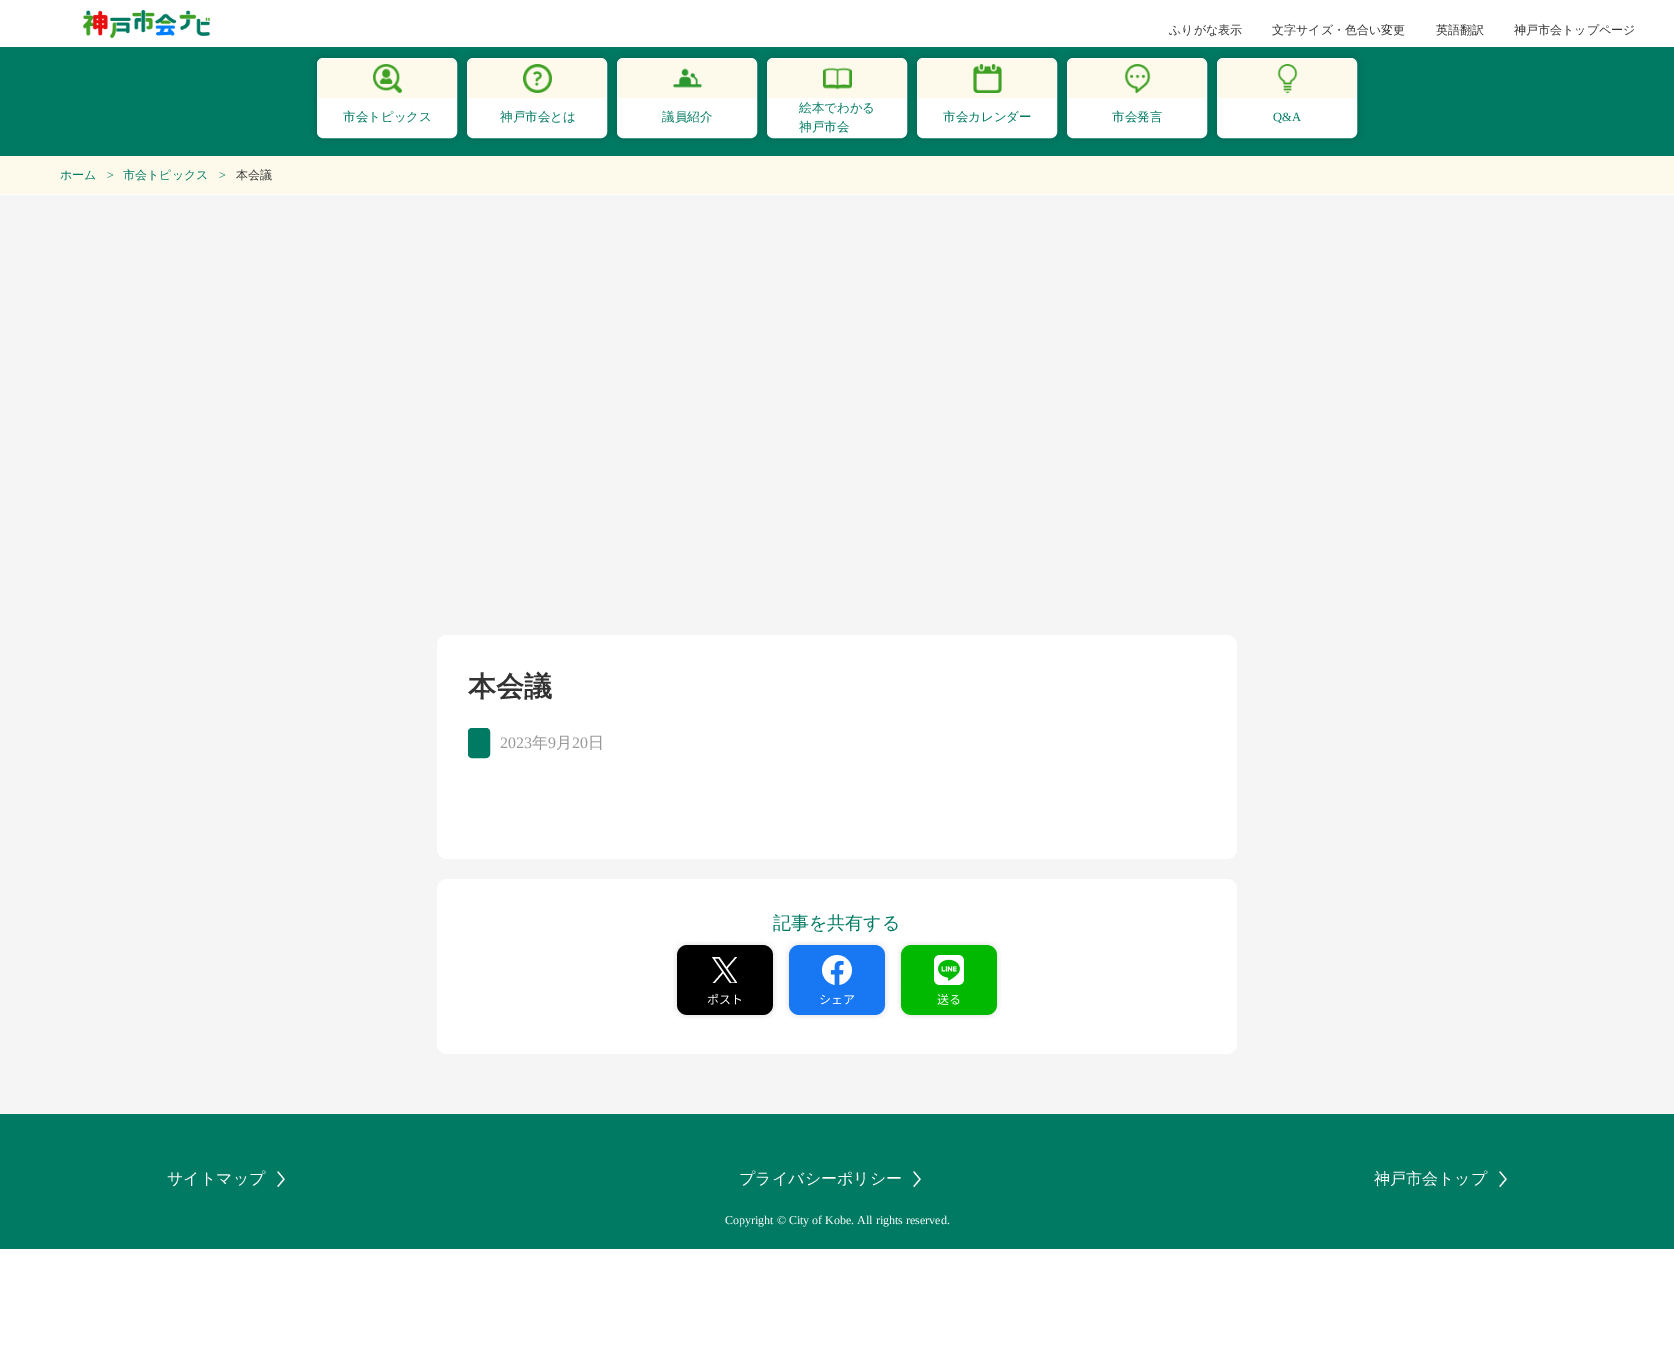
%!PS
<< /PageSize [1674 1367] /PageUsesTransparency true >> setpagedevice
/rgb { 3 { 255 div 3 1 roll } repeat setrgbcolor } def
/font { [ exch dup neg 0 0 3 -1 roll 0 0 ] selectfont } def
/alpha { dup .setfillconstantalpha .setstrokeconstantalpha } def
/roundrect { 5 dict begin { /r /h /w /y /x } { exch def } forall
  x r add y moveto x w add y 2 copy h add r arct x w add y h add x 1 index r arct
  x y h add x y r arct x y 2 copy exch w add exch r arct closepath end } def
/shadow { 12 dict begin { /a /b /q /h /w /y /x } { exch def } forall gsave /was 0 def
  9 -2 -9 { dup b mul 4 div /e exch def 1 sub .425 mul 2.718 exch exp 1 add a .99 .min exch div /now exch def
    1 1 now sub 1 was sub div sub alpha /was now def
    w h .min e 2 mul add 0 gt { x e sub y e sub w e 2 mul add h e 2 mul add
      q e add b .6 mul add w h .min 2 div e add .min 0 .max roundrect fill } if } for grestore end } def
/picture { 5 dict begin { /h /w /y /x /name } { exch def } forall
  gsave x y translate w h scale
  w h 8 [w 0 0 h 0 0] name (r) file false 3 colorimage grestore end } def
0 .pushpdf14devicefilter
0 1367 translate 1 -1 scale
4 setmiterlimit
255 255 255 rgb
0 0 1674 1367 rectfill
0 122 99 rgb
0 50 1674 106 rectfill
0 0 0 rgb
315 56 144 84 8 4 0.15 shadow
255 255 255 rgb
317.5 58.5 139 79 5.5 roundrect stroke
253 250 235 rgb
323 59 moveto 451 59 lineto 454 59 456 61 456 64 curveto 456 98 lineto 318 98 lineto 318 64 lineto 318 61 320 59 323 59 curveto closepath fill
255 255 255 rgb
318 98 moveto 456 98 lineto 456 132 lineto 456 135 454 137 451 137 curveto 323 137 lineto 320 137 318 135 318 132 curveto closepath fill
0 0 0 rgb
465 56 144 84 8 4 0.15 shadow
255 255 255 rgb
467.5 58.5 139 79 5.5 roundrect stroke
253 250 235 rgb
473 59 moveto 601 59 lineto 604 59 606 61 606 64 curveto 606 98 lineto 468 98 lineto 468 64 lineto 468 61 470 59 473 59 curveto closepath fill
255 255 255 rgb
468 98 moveto 606 98 lineto 606 132 lineto 606 135 604 137 601 137 curveto 473 137 lineto 470 137 468 135 468 132 curveto closepath fill
0 0 0 rgb
615 56 144 84 8 4 0.15 shadow
255 255 255 rgb
617.5 58.5 139 79 5.5 roundrect stroke
253 250 235 rgb
623 59 moveto 751 59 lineto 754 59 756 61 756 64 curveto 756 98 lineto 618 98 lineto 618 64 lineto 618 61 620 59 623 59 curveto closepath fill
255 255 255 rgb
618 98 moveto 756 98 lineto 756 132 lineto 756 135 754 137 751 137 curveto 623 137 lineto 620 137 618 135 618 132 curveto closepath fill
0 0 0 rgb
765 56 144 84 8 4 0.15 shadow
255 255 255 rgb
767.5 58.5 139 79 5.5 roundrect stroke
253 250 235 rgb
773 59 moveto 901 59 lineto 904 59 906 61 906 64 curveto 906 98 lineto 768 98 lineto 768 64 lineto 768 61 770 59 773 59 curveto closepath fill
255 255 255 rgb
768 98 moveto 906 98 lineto 906 132 lineto 906 135 904 137 901 137 curveto 773 137 lineto 770 137 768 135 768 132 curveto closepath fill
0 0 0 rgb
915 56 144 84 8 4 0.15 shadow
255 255 255 rgb
917.5 58.5 139 79 5.5 roundrect stroke
253 250 235 rgb
923 59 moveto 1051 59 lineto 1054 59 1056 61 1056 64 curveto 1056 98 lineto 918 98 lineto 918 64 lineto 918 61 920 59 923 59 curveto closepath fill
255 255 255 rgb
918 98 moveto 1056 98 lineto 1056 132 lineto 1056 135 1054 137 1051 137 curveto 923 137 lineto 920 137 918 135 918 132 curveto closepath fill
0 0 0 rgb
1065 56 144 84 8 4 0.15 shadow
255 255 255 rgb
1067.5 58.5 139 79 5.5 roundrect stroke
253 250 235 rgb
1073 59 moveto 1201 59 lineto 1204 59 1206 61 1206 64 curveto 1206 98 lineto 1068 98 lineto 1068 64 lineto 1068 61 1070 59 1073 59 curveto closepath fill
255 255 255 rgb
1068 98 moveto 1206 98 lineto 1206 132 lineto 1206 135 1204 137 1201 137 curveto 1073 137 lineto 1070 137 1068 135 1068 132 curveto closepath fill
0 0 0 rgb
1215 56 144 84 8 4 0.15 shadow
0 122 99 rgb
0 47 1674 3 rectfill
(img/1.rgb) 82 10 129 28 picture
(img/2.rgb) 373 64 29 29 picture
(img/3.rgb) 523 64 29 29 picture
(img/4.rgb) 673 68 29 20 picture
(img/5.rgb) 823 67 29 23 picture
(img/6.rgb) 973 64 29 29 picture
(img/7.rgb) 1124 64 27 29 picture
255 255 255 rgb
1217.5 58.5 139 79 5.5 roundrect stroke
253 250 235 rgb
1223 59 moveto 1351 59 lineto 1354 59 1356 61 1356 64 curveto 1356 98 lineto 1218 98 lineto 1218 64 lineto 1218 61 1220 59 1223 59 curveto closepath fill
(img/8.rgb) 1277 64 21 29 picture
255 255 255 rgb
1218 98 moveto 1356 98 lineto 1356 132 lineto 1356 135 1354 137 1351 137 curveto 1223 137 lineto 1220 137 1218 135 1218 132 curveto closepath fill
253 250 235 rgb
0 156 1674 38 rectfill
245 245 245 rgb
0 195 1674 919 rectfill
255 255 255 rgb
437 635 800 224 10 roundrect fill
0 122 99 rgb
468.5 728.5 21 29 3.5 roundrect gsave fill grestore
stroke
255 255 255 rgb
437 879 800 175 10 roundrect fill
(img/9.rgb) 673 941 104 78 picture
(img/10.rgb) 785 941 104 78 picture
(img/11.rgb) 897 941 104 78 picture
0 122 99 rgb
0 1114 1674 135 rectfill
(img/12.rgb) 277 1171 8 16 picture
(img/12.rgb) 913 1171 8 16 picture
(img/12.rgb) 1499 1171 8 16 picture
/WenQuanYiZenHei-Medium 12 font
51 51 51 rgb
[
  [(ふりがな表示) 1169 34]
  [(文字サイズ・色合い変更) 1272 34]
  [(英語翻訳) 1436 34]
  [(神戸市会トップページ) 1514 34]
] { aload pop moveto show } forall
/WenQuanYiZenHei-Medium 12.5 font
0 122 99 rgb
[
  [(市会トピックス) 343 121]
  [(神戸市会とは) 500 121]
  [(議員紹介) 662 121]
  [(絵本でわかる) 799 112]
  [(神戸市会) 799 131]
  [(市会カレンダー) 943 121]
  [(市会発言) 1112 121]
] { aload pop moveto show } forall
/LiberationSerif-Regular 12.5 font
1273 121 moveto (Q&A) show
/WenQuanYiZenHei-Medium 12 font
60 179 moveto (ホーム) show
/LiberationSerif-Regular 12 font
107 179 moveto (>) show
/WenQuanYiZenHei-Medium 12 font
123 179 moveto (市会トピックス) show
/LiberationSerif-Regular 12 font
219 179 moveto (>) show
/WenQuanYiZenHei-Medium 12 font
51 51 51 rgb
236 179 moveto (本会議) show
/WenQuanYiZenHei-Bold 28 font
468 696 moveto (本会議) show
/LiberationSerif-Regular 16 font
153 153 153 rgb
500 748 moveto (2023) show
/WenQuanYiZenHei-Medium 16 font
532 748 moveto (年) show
/LiberationSerif-Regular 16 font
548 748 moveto (9) show
/WenQuanYiZenHei-Medium 16 font
556 748 moveto (月) show
/LiberationSerif-Regular 16 font
572 748 moveto (20) show
/WenQuanYiZenHei-Medium 16 font
588 748 moveto (日) show
/WenQuanYiZenHei-Medium 18 font
0 122 99 rgb
773 929 moveto (記事を共有する) show
/WenQuanYiZenHei-Medium 16 font
255 255 255 rgb
[
  [(サイトマップ) 167 1184]
  [(プライバシーポリシー) 739 1184]
  [(神戸市会トップ) 1374 1184]
] { aload pop moveto show } forall
/LiberationSerif-Regular 12 font
725 1224 moveto (Copyright © City of Kobe. All rights reserved.) show
.poppdf14devicefilter showpage
